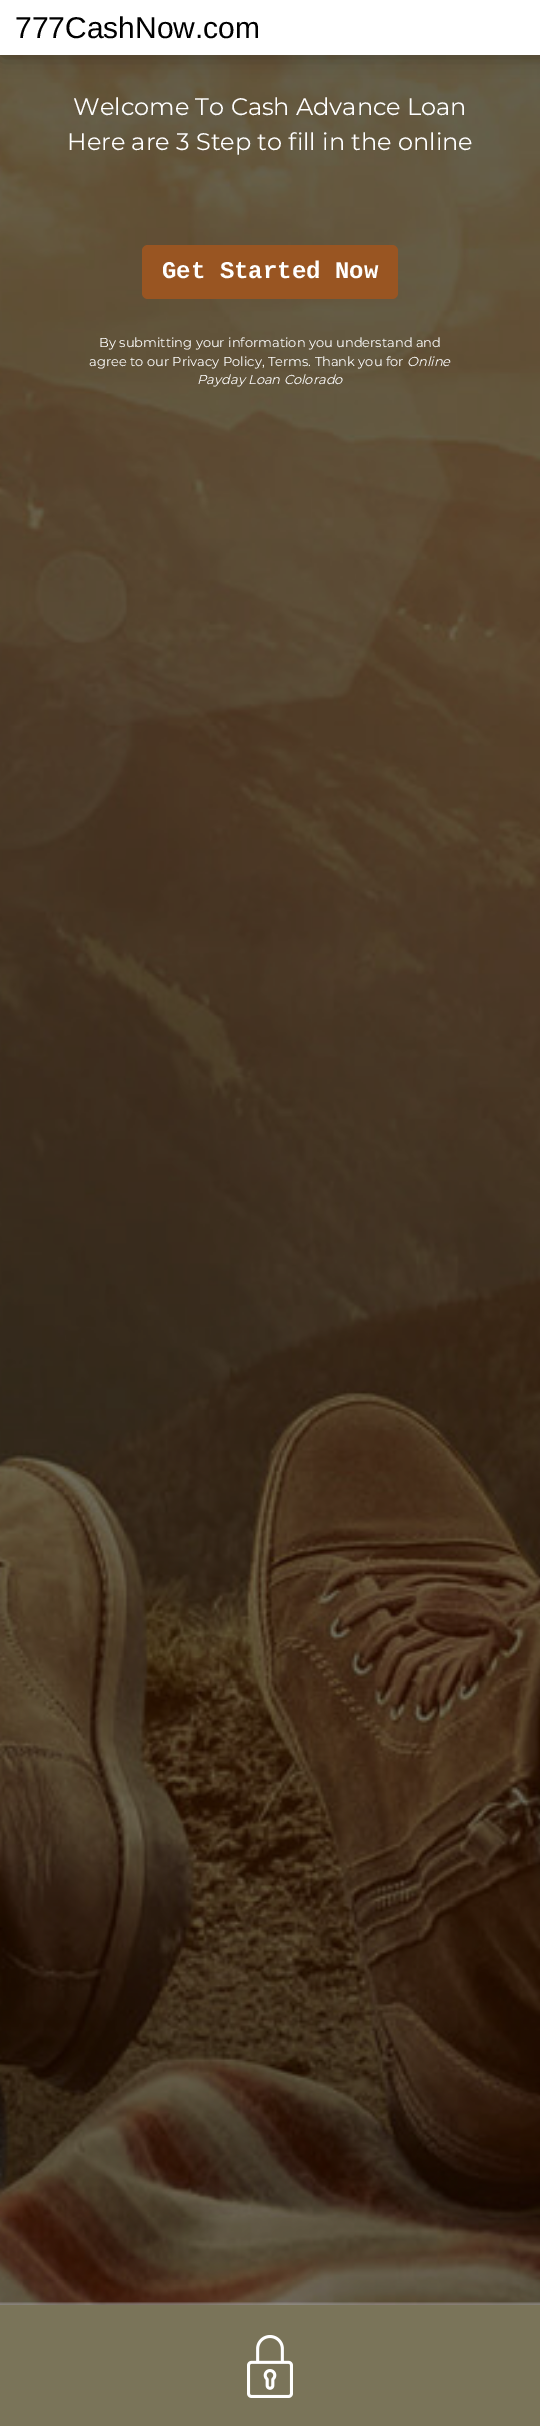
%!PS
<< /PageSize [540 2426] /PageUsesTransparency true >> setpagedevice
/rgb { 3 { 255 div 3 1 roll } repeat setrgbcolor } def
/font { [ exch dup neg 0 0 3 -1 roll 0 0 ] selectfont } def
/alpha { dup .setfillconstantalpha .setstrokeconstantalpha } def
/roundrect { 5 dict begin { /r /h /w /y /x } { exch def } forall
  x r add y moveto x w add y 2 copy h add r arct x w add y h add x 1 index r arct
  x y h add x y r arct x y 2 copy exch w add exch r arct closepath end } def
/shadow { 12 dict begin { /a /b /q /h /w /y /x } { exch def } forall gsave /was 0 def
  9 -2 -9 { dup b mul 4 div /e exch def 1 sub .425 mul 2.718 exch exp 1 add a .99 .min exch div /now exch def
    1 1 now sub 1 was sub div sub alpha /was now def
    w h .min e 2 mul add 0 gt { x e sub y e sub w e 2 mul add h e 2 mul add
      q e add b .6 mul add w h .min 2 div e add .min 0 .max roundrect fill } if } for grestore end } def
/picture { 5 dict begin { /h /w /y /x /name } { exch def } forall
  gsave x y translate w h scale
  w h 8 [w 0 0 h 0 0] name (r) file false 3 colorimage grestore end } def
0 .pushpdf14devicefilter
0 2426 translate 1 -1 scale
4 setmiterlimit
122 116 89 rgb
0 0 540 2426 rectfill
(img/1.rgb) 0 55 540 2250 picture
0 0 0 rgb
2 2 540 55 0 10 0.3 shadow
255 255 255 rgb
0 0 540 55 rectfill
153 85 34 rgb
142 245 256 54 6 roundrect fill
(img/2.rgb) 247 2335 46 63 picture
/LiberationSans-Regular 30 font
0 0 0 rgb
15 38 moveto (777CashNow.com) show
/Montserrat-Regular 24 font
255 255 255 rgb
73 115 moveto (Welcome To Cash Advance Loan) show
67 150 moveto (Here are 3 Step to fill in the online) show
/LiberationMono-Bold 24 font
162 278 moveto (Get Started Now) show
/Montserrat-Regular 13 font
99 347 moveto (By submitting your information you understand and) show
89 366 moveto (agree to our Privacy Policy, Terms. Thank you for) show
/Montserrat-Italic 13 font
407 366 moveto (Online) show
197 384 moveto (Payday Loan Colorado) show
.poppdf14devicefilter showpage
